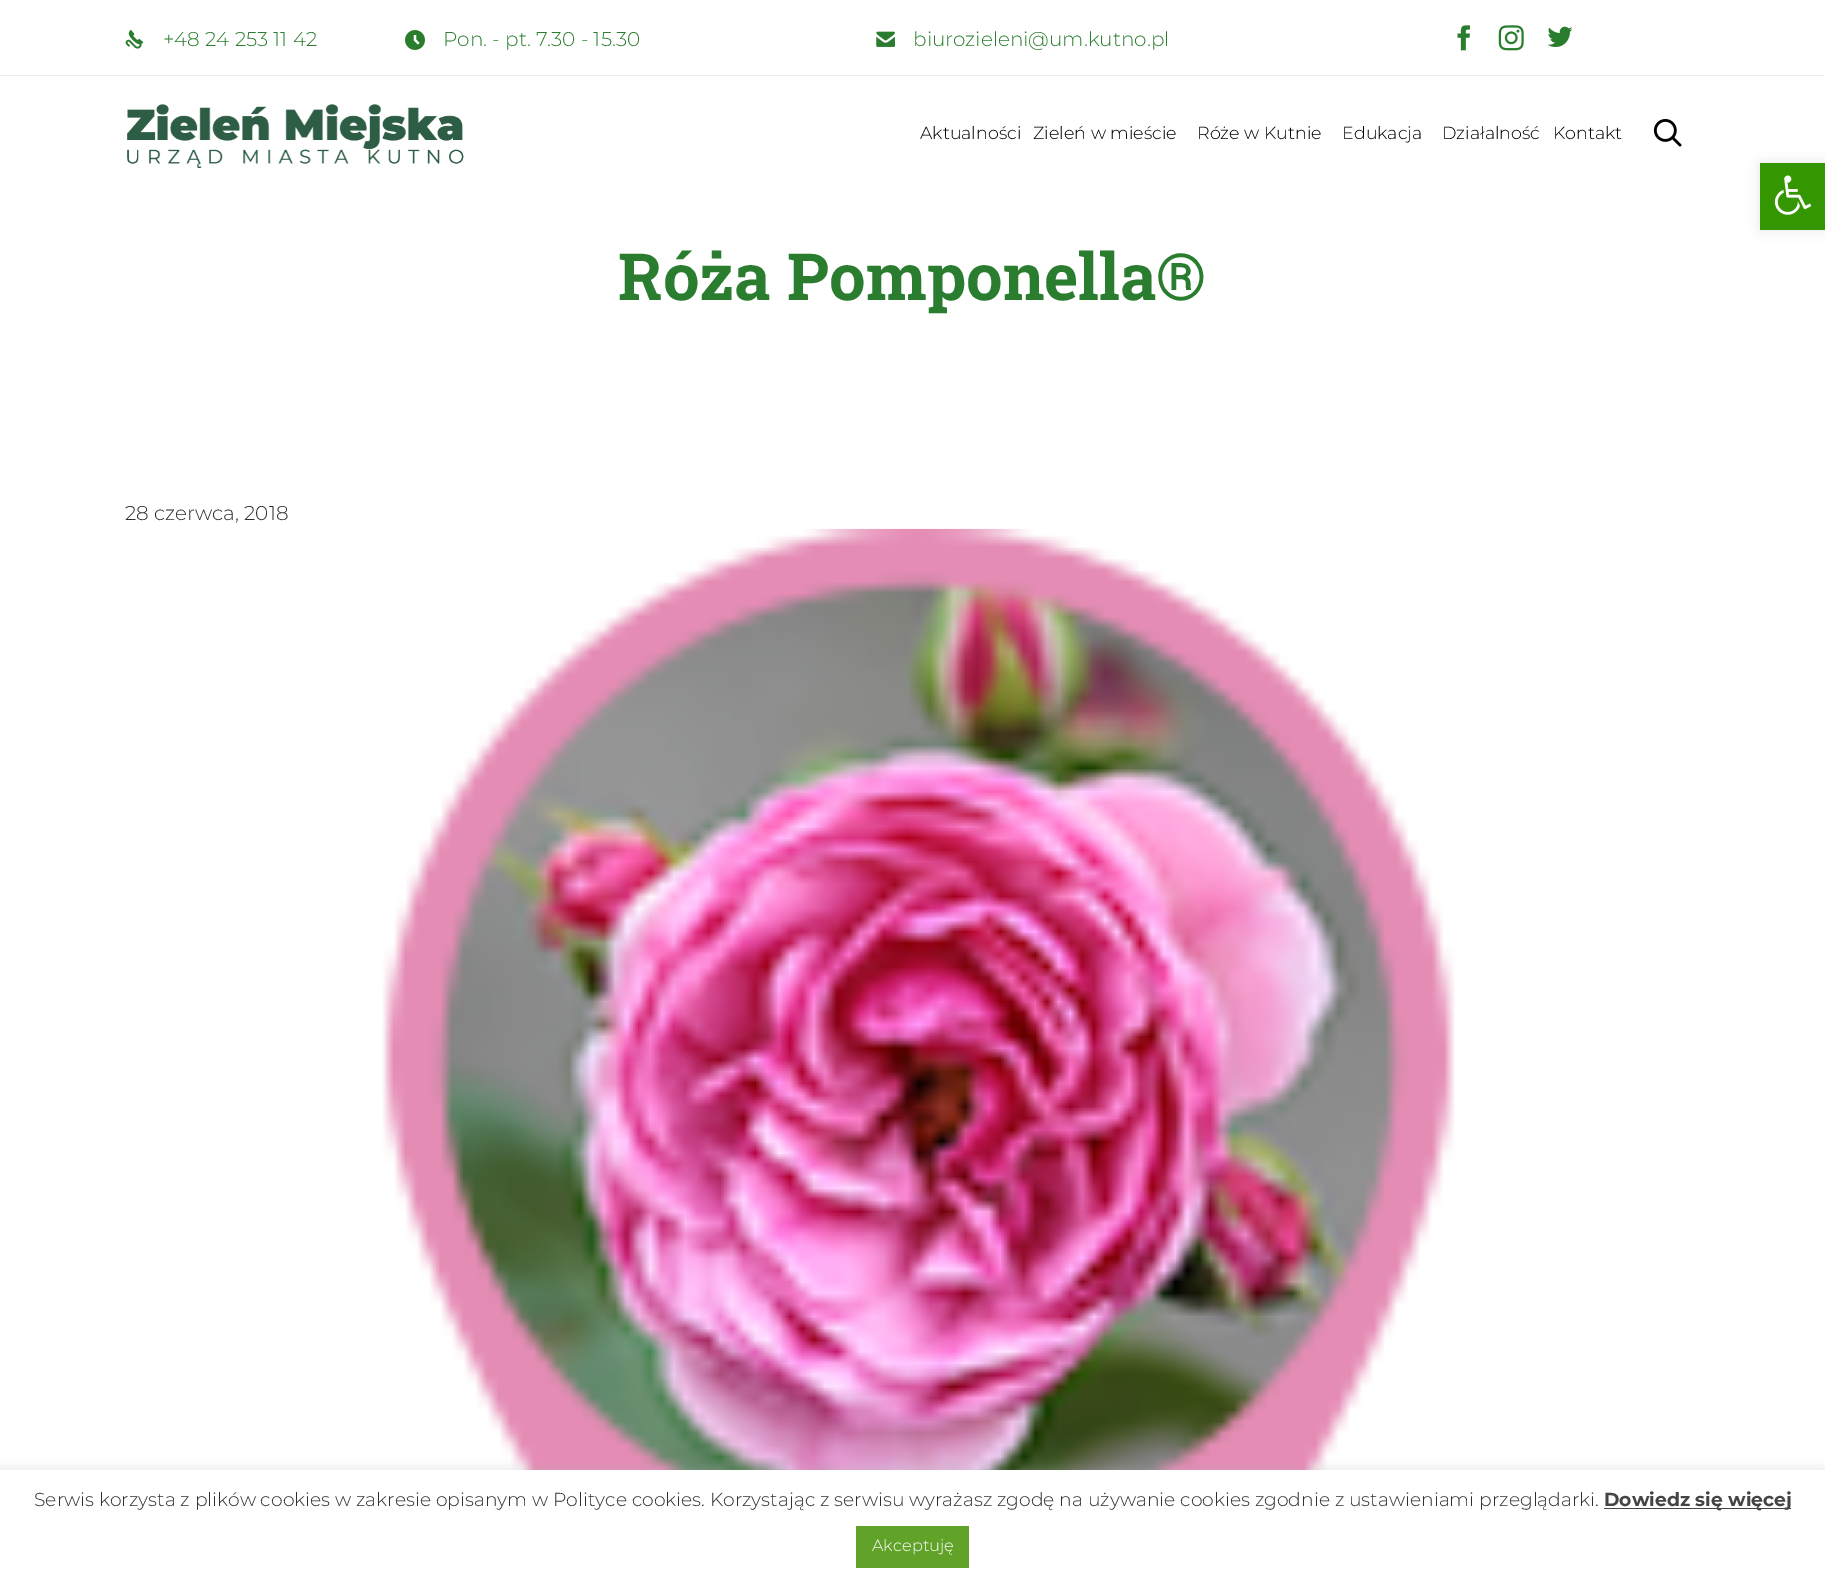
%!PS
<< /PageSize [1825 1595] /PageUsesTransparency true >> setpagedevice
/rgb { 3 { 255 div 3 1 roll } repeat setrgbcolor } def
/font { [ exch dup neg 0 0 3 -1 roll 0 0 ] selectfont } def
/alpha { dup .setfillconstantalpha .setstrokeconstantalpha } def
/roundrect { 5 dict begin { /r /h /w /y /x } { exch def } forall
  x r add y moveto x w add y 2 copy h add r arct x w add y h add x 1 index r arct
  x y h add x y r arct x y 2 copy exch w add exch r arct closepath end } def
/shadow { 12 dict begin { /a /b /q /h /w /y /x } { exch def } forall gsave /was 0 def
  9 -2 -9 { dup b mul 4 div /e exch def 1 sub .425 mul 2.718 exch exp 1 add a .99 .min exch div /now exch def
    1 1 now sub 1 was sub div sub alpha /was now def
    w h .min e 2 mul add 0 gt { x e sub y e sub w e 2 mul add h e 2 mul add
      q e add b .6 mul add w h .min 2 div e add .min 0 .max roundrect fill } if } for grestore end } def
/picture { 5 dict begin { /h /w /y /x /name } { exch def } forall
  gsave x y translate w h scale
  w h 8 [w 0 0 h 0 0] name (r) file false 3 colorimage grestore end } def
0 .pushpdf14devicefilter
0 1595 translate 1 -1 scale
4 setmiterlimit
255 255 255 rgb
0 0 1825 1595 rectfill
237 237 237 rgb
0 75 1825 1 rectfill
(img/1.rgb) 125 30 19 19 picture
(img/2.rgb) 405 30 20 20 picture
(img/3.rgb) 876 31 19 16 picture
(img/4.rgb) 1457 25 13 26 picture
(img/5.rgb) 1498 25 26 26 picture
(img/6.rgb) 1547 26 26 21 picture
(img/7.rgb) 127 104 337 64 picture
(img/8.rgb) 1653 119 29 28 picture
0 0 0 rgb
1760 163 65 67 0 6 0.1 shadow
52 150 0 rgb
1760 163 65 67 rectfill
(img/9.rgb) 1774 175 38 40 picture
(img/10.rgb) 382 528 1073 942 picture
172 171 171 rgb
0 1469 1825 125 0 6 0.3 shadow
[
  [0 1470 1825 125 255 255 255]
  [1604 1508 187 1 68 68 68]
  [856 1526 113 42 97 162 41]
] { aload pop rgb rectfill } forall
/Montserrat-Light 20 font
42 125 46 rgb
[
  [(+48 24 253 11 42) 163 46]
  [(Pon. - pt. 7.30 - 15.30) 443 46]
  [(biurozieleni@um.kutno.pl) 913 46]
] { aload pop moveto show } forall
/Montserrat-Light 17.5 font
0 0 0 rgb
[
  [(Aktualności) 920 139]
  [(Zieleń w mieście) 1033 139]
  [(Róże w Kutnie) 1197 139]
  [(Edukacja) 1342 139]
  [(Działalność) 1442 139]
  [(Kontakt) 1553 139]
] { aload pop moveto show } forall
/RobotoSlab-Bold 65 font
42 125 46 rgb
618 300 moveto (Róża Pomponella®) show
/Montserrat-Light 20 font
47 47 47 rgb
125 520 moveto (28 czerwca, 2018) show
/Montserrat-Light 18.75 font
34 1506 moveto (Serwis korzysta z plików cookies w zakresie opisanym w Polityce cookies. Korzystając z serwisu wyrażasz zgodę na używanie cookies zgodnie z ustawieniami przeglądarki.) show
/Montserrat-Bold 18.75 font
68 68 68 rgb
1604 1506 moveto (Dowiedz się więcej) show
/Montserrat-Light 16.25 font
255 255 255 rgb
872 1551 moveto (Akceptuję) show
.poppdf14devicefilter showpage
